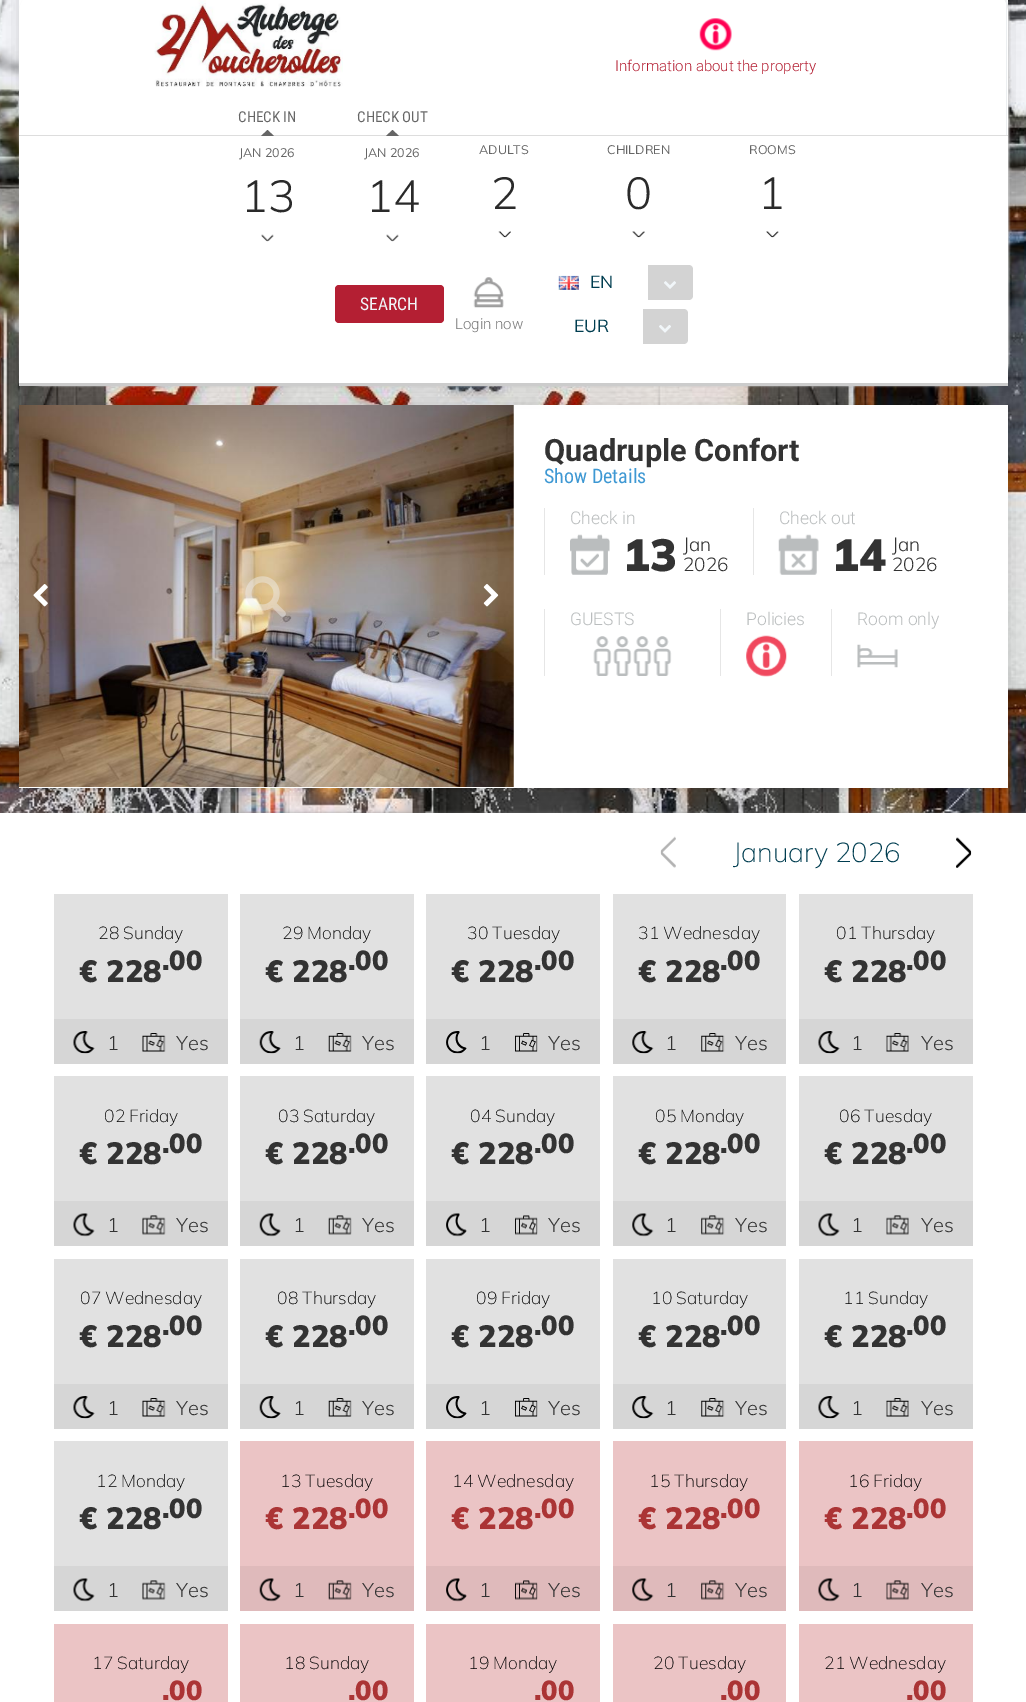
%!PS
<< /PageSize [1026 1702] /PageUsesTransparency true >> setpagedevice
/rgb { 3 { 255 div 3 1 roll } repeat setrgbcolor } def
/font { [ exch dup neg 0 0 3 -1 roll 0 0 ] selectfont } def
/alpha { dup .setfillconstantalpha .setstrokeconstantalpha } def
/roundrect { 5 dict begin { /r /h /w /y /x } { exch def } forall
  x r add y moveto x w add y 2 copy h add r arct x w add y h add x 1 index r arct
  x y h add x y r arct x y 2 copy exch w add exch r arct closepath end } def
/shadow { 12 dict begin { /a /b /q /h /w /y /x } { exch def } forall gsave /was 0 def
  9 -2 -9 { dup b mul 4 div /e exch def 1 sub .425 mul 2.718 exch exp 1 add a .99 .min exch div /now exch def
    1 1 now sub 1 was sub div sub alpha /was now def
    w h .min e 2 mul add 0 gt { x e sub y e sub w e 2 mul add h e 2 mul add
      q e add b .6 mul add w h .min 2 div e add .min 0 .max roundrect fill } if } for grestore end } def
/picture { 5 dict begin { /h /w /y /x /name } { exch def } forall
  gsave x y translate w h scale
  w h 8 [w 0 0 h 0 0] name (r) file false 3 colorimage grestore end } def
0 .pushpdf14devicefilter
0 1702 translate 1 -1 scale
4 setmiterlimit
255 255 255 rgb
0 0 1026 1702 rectfill
(img/1.rgb) 0 0 1026 813 picture
119 119 119 rgb
1 814 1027 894 0 2 1 shadow
255 255 255 rgb
0 813 1026 889 rectfill
0 0 0 rgb
19 405 989 383 0 10.5 0.15 shadow
255 255 255 rgb
19 405 989 383 rectfill
(img/12.rgb) 19 405 495 382 picture
0 0 0 rgb
19 -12 989 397 0 10.5 0.15 shadow
255 255 255 rgb
19 0 989 13 rectfill
204 204 204 rgb
20 -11 989 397 25 1 1 shadow
255 255 255 rgb
44 -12 moveto 983 -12 lineto 997 -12 1008 -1 1008 13 curveto 1008 385 lineto 19 385 lineto 19 13 lineto 19 -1 30 -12 44 -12 curveto closepath fill
204 204 204 rgb
19 383 989 3 rectfill
236 239 241 rgb
1006 0 1 135 rectfill
(img/2.rgb) 154 0 189 87 picture
(img/3.rgb) 699 18 33 33 picture
221 221 221 rgb
19 135 989 1 rectfill
102 102 102 rgb
274 136 moveto 261 136 lineto 267.5 130 lineto closepath fill
(img/4.rgb) 261 234 13 8 picture
399 136 moveto 386 136 lineto 392.5 130 lineto closepath fill
(img/4.rgb) 386 234 13 8 picture
(img/5.rgb) 498 231 13 7 picture
(img/6.rgb) 632 231 13 7 picture
(img/7.rgb) 766 231 13 7 picture
180 31 51 rgb
335 285 109 38 4 roundrect fill
(img/8.rgb) 473 277 31 31 picture
(img/9.rgb) 558 275 21 15 picture
211 211 211 rgb
648 265 moveto 689 265 lineto 691 265 693 267 693 269 curveto 693 296 lineto 693 298 691 300 689 300 curveto 648 300 lineto closepath fill
(img/10.rgb) 664 281 12 8 picture
643 309 moveto 684 309 lineto 686 309 688 311 688 313 curveto 688 340 lineto 688 342 686 344 684 344 curveto 643 344 lineto closepath fill
(img/11.rgb) 659 325 12 8 picture
(img/13.rgb) 33 584 15 23 picture
(img/14.rgb) 245 576 41 41 picture
(img/15.rgb) 483 584 16 23 picture
230 230 230 rgb
544 508 1 67 rectfill
(img/16.rgb) 570 534 40 41 picture
753 508 1 67 rectfill
(img/17.rgb) 778 534 41 41 picture
544 609 1 67 rectfill
(img/18.rgb) 593 636 19 40 picture
(img/19.rgb) 613 636 19 40 picture
(img/18.rgb) 633 636 19 40 picture
(img/18.rgb) 653 636 19 40 picture
720 609 1 67 rectfill
(img/20.rgb) 746 635 41 42 picture
831 609 1 67 rectfill
(img/21.rgb) 857 644 41 24 picture
(img/22.rgb) 660 836 16 32 picture
(img/23.rgb) 956 837 16 31 picture
225 225 225 rgb
54 894 174 125 rectfill
214 214 214 rgb
54 1019 174 45 rectfill
(img/24.rgb) 73 1031 22 23 picture
(img/25.rgb) 142 1033 24 19 picture
225 225 225 rgb
240 894 174 125 rectfill
214 214 214 rgb
240 1019 174 45 rectfill
(img/26.rgb) 259 1031 22 23 picture
(img/27.rgb) 328 1033 24 19 picture
225 225 225 rgb
426 894 174 125 rectfill
214 214 214 rgb
426 1019 174 45 rectfill
(img/28.rgb) 446 1031 21 23 picture
(img/29.rgb) 515 1033 23 19 picture
225 225 225 rgb
613 894 173 125 rectfill
214 214 214 rgb
613 1019 173 45 rectfill
(img/30.rgb) 632 1031 22 23 picture
(img/31.rgb) 701 1033 24 19 picture
225 225 225 rgb
799 894 174 125 rectfill
214 214 214 rgb
799 1019 174 45 rectfill
(img/24.rgb) 818 1031 22 23 picture
(img/32.rgb) 886 1033 23 19 picture
225 225 225 rgb
54 1076 174 125 rectfill
214 214 214 rgb
54 1201 174 45 rectfill
(img/33.rgb) 73 1213 22 24 picture
(img/34.rgb) 142 1215 24 20 picture
225 225 225 rgb
240 1076 174 125 rectfill
214 214 214 rgb
240 1201 174 45 rectfill
(img/35.rgb) 259 1213 22 24 picture
(img/36.rgb) 328 1215 24 20 picture
225 225 225 rgb
426 1076 174 125 rectfill
214 214 214 rgb
426 1201 174 45 rectfill
(img/37.rgb) 446 1213 21 24 picture
(img/38.rgb) 515 1215 23 20 picture
225 225 225 rgb
613 1076 173 125 rectfill
214 214 214 rgb
613 1201 173 45 rectfill
(img/39.rgb) 632 1213 22 24 picture
(img/40.rgb) 701 1215 24 20 picture
225 225 225 rgb
799 1076 174 125 rectfill
214 214 214 rgb
799 1201 174 45 rectfill
(img/33.rgb) 818 1213 22 24 picture
(img/41.rgb) 886 1215 23 20 picture
225 225 225 rgb
54 1259 174 125 rectfill
214 214 214 rgb
54 1384 174 45 rectfill
(img/24.rgb) 73 1396 22 23 picture
(img/25.rgb) 142 1398 24 19 picture
225 225 225 rgb
240 1259 174 125 rectfill
214 214 214 rgb
240 1384 174 45 rectfill
(img/26.rgb) 259 1396 22 23 picture
(img/27.rgb) 328 1398 24 19 picture
225 225 225 rgb
426 1259 174 125 rectfill
214 214 214 rgb
426 1384 174 45 rectfill
(img/28.rgb) 446 1396 21 23 picture
(img/29.rgb) 515 1398 23 19 picture
225 225 225 rgb
613 1259 173 125 rectfill
214 214 214 rgb
613 1384 173 45 rectfill
(img/30.rgb) 632 1396 22 23 picture
(img/31.rgb) 701 1398 24 19 picture
225 225 225 rgb
799 1259 174 125 rectfill
214 214 214 rgb
799 1384 174 45 rectfill
(img/24.rgb) 818 1396 22 23 picture
(img/32.rgb) 886 1398 23 19 picture
225 225 225 rgb
54 1441 174 125 rectfill
214 214 214 rgb
54 1566 174 45 rectfill
(img/33.rgb) 73 1578 22 24 picture
(img/34.rgb) 142 1580 24 20 picture
235 196 197 rgb
240 1441 174 125 rectfill
223 186 187 rgb
240 1566 174 45 rectfill
(img/42.rgb) 259 1578 22 24 picture
(img/43.rgb) 328 1580 24 20 picture
235 196 197 rgb
426 1441 174 125 rectfill
223 186 187 rgb
426 1566 174 45 rectfill
(img/44.rgb) 446 1578 21 24 picture
(img/45.rgb) 515 1580 23 20 picture
235 196 197 rgb
613 1441 173 125 rectfill
223 186 187 rgb
613 1566 173 45 rectfill
(img/46.rgb) 632 1578 22 24 picture
(img/47.rgb) 701 1580 24 20 picture
235 196 197 rgb
799 1441 174 125 rectfill
223 186 187 rgb
799 1566 174 45 rectfill
(img/48.rgb) 818 1578 22 24 picture
(img/49.rgb) 886 1580 23 20 picture
[
  [54 1624 174 78 235 196 197]
  [240 1624 174 78 235 196 197]
  [426 1624 174 78 235 196 197]
  [613 1624 173 78 235 196 197]
  [799 1624 174 78 235 196 197]
] { aload pop rgb rectfill } forall
/Roboto-Light 15 font
180 31 51 rgb
615 71 moveto (Information about the property) show
/RobotoCondensed-Regular 15 font
102 102 102 rgb
238 122 moveto (CHECK IN) show
/Mulish-Regular 12.5 font
239 157 moveto (JAN 2026) show
/Mulish-Light 45 font
42 42 42 rgb
241 212 moveto (13) show
/RobotoCondensed-Regular 15 font
102 102 102 rgb
357 122 moveto (CHECK OUT) show
/Mulish-Regular 12.5 font
364 157 moveto (JAN 2026) show
/Mulish-Light 45 font
42 42 42 rgb
366 212 moveto (14) show
/Mulish-Regular 12.5 font
102 102 102 rgb
479 154 moveto (ADULTS) show
/Mulish-Light 45 font
42 42 42 rgb
491 209 moveto (2) show
/Mulish-Regular 12.5 font
102 102 102 rgb
607 154 moveto (CHILDREN) show
/Mulish-Light 45 font
42 42 42 rgb
625 209 moveto (0) show
/Mulish-Regular 12.5 font
102 102 102 rgb
749 154 moveto (ROOMS) show
/Mulish-Light 45 font
42 42 42 rgb
758 209 moveto (1) show
/RobotoCondensed-Regular 17.5 font
241 246 249 rgb
360 310 moveto (SEARCH) show
/Roboto-Light 15 font
120 120 120 rgb
455 329 moveto (Login now) show
/Mulish-Regular 17.5 font
0 61 80 rgb
590 288 moveto (EN) show
574 332 moveto (EUR) show
/Roboto-Bold 30.75 font
51 51 51 rgb
544 461 moveto (Quadruple Confort) show
/RobotoCondensed-Regular 20 font
62 152 211 rgb
544 483 moveto (Show Details) show
/Roboto-Light 17.5 font
186 189 190 rgb
570 524 moveto (Check in) show
/Mulish-Black 45 font
51 51 51 rgb
623 571 moveto (13) show
/Mulish-Light 19 font
683 551 moveto (Jan) show
683 571 moveto (2026) show
/Roboto-Light 17.5 font
186 189 190 rgb
779 524 moveto (Check out) show
/Mulish-Black 45 font
51 51 51 rgb
832 571 moveto (14) show
/Mulish-Light 19 font
892 551 moveto (Jan) show
892 571 moveto (2026) show
/Roboto-Light 17.5 font
186 189 190 rgb
[
  [(GUESTS) 570 625]
  [(Policies) 746 625]
  [(Room only) 857 625]
] { aload pop moveto show } forall
/Mulish-ExtraLight 27.5 font
0 61 80 rgb
733 862 moveto (January 2026) show
/Mulish-ExtraLight 17.5 font
0 0 0 rgb
98 939 moveto (28 Sunday) show
/Mulish-Black 30.75 font
51 51 51 rgb
79 982 moveto (€ 228) show
/Mulish-Black 27.5 font
162 970 moveto (.00) show
/Mulish-Light 20 font
107 1050 moveto (1) show
176 1050 moveto (Yes) show
/Mulish-ExtraLight 17.5 font
0 0 0 rgb
282 939 moveto (29 Monday) show
/Mulish-Black 30.75 font
51 51 51 rgb
265 982 moveto (€ 228) show
/Mulish-Black 27.5 font
348 970 moveto (.00) show
/Mulish-Light 20 font
293 1050 moveto (1) show
362 1050 moveto (Yes) show
/Mulish-ExtraLight 17.5 font
0 0 0 rgb
467 939 moveto (30 Tuesday) show
/Mulish-Black 30.75 font
51 51 51 rgb
451 982 moveto (€ 228) show
/Mulish-Black 27.5 font
534 970 moveto (.00) show
/Mulish-Light 20 font
479 1050 moveto (1) show
548 1050 moveto (Yes) show
/Mulish-ExtraLight 17.5 font
0 0 0 rgb
638 939 moveto (31 Wednesday) show
/Mulish-Black 30.75 font
51 51 51 rgb
638 982 moveto (€ 228) show
/Mulish-Black 27.5 font
720 970 moveto (.00) show
/Mulish-Light 20 font
665 1050 moveto (1) show
735 1050 moveto (Yes) show
/Mulish-ExtraLight 17.5 font
0 0 0 rgb
836 939 moveto (01 Thursday) show
/Mulish-Black 30.75 font
51 51 51 rgb
824 982 moveto (€ 228) show
/Mulish-Black 27.5 font
906 970 moveto (.00) show
/Mulish-Light 20 font
851 1050 moveto (1) show
921 1050 moveto (Yes) show
/Mulish-ExtraLight 17.5 font
0 0 0 rgb
104 1122 moveto (02 Friday) show
/Mulish-Black 30.75 font
51 51 51 rgb
79 1164 moveto (€ 228) show
/Mulish-Black 27.5 font
162 1153 moveto (.00) show
/Mulish-Light 20 font
107 1232 moveto (1) show
176 1232 moveto (Yes) show
/Mulish-ExtraLight 17.5 font
0 0 0 rgb
278 1122 moveto (03 Saturday) show
/Mulish-Black 30.75 font
51 51 51 rgb
265 1164 moveto (€ 228) show
/Mulish-Black 27.5 font
348 1153 moveto (.00) show
/Mulish-Light 20 font
293 1232 moveto (1) show
362 1232 moveto (Yes) show
/Mulish-ExtraLight 17.5 font
0 0 0 rgb
470 1122 moveto (04 Sunday) show
/Mulish-Black 30.75 font
51 51 51 rgb
451 1164 moveto (€ 228) show
/Mulish-Black 27.5 font
534 1153 moveto (.00) show
/Mulish-Light 20 font
479 1232 moveto (1) show
548 1232 moveto (Yes) show
/Mulish-ExtraLight 17.5 font
0 0 0 rgb
655 1122 moveto (05 Monday) show
/Mulish-Black 30.75 font
51 51 51 rgb
638 1164 moveto (€ 228) show
/Mulish-Black 27.5 font
720 1153 moveto (.00) show
/Mulish-Light 20 font
665 1232 moveto (1) show
735 1232 moveto (Yes) show
/Mulish-ExtraLight 17.5 font
0 0 0 rgb
839 1122 moveto (06 Tuesday) show
/Mulish-Black 30.75 font
51 51 51 rgb
824 1164 moveto (€ 228) show
/Mulish-Black 27.5 font
906 1153 moveto (.00) show
/Mulish-Light 20 font
851 1232 moveto (1) show
921 1232 moveto (Yes) show
/Mulish-ExtraLight 17.5 font
0 0 0 rgb
80 1304 moveto (07 Wednesday) show
/Mulish-Black 30.75 font
51 51 51 rgb
79 1347 moveto (€ 228) show
/Mulish-Black 27.5 font
162 1335 moveto (.00) show
/Mulish-Light 20 font
107 1415 moveto (1) show
176 1415 moveto (Yes) show
/Mulish-ExtraLight 17.5 font
0 0 0 rgb
277 1304 moveto (08 Thursday) show
/Mulish-Black 30.75 font
51 51 51 rgb
265 1347 moveto (€ 228) show
/Mulish-Black 27.5 font
348 1335 moveto (.00) show
/Mulish-Light 20 font
293 1415 moveto (1) show
362 1415 moveto (Yes) show
/Mulish-ExtraLight 17.5 font
0 0 0 rgb
476 1304 moveto (09 Friday) show
/Mulish-Black 30.75 font
51 51 51 rgb
451 1347 moveto (€ 228) show
/Mulish-Black 27.5 font
534 1335 moveto (.00) show
/Mulish-Light 20 font
479 1415 moveto (1) show
548 1415 moveto (Yes) show
/Mulish-ExtraLight 17.5 font
0 0 0 rgb
651 1304 moveto (10 Saturday) show
/Mulish-Black 30.75 font
51 51 51 rgb
638 1347 moveto (€ 228) show
/Mulish-Black 27.5 font
720 1335 moveto (.00) show
/Mulish-Light 20 font
665 1415 moveto (1) show
735 1415 moveto (Yes) show
/Mulish-ExtraLight 17.5 font
0 0 0 rgb
843 1304 moveto (11 Sunday) show
/Mulish-Black 30.75 font
51 51 51 rgb
824 1347 moveto (€ 228) show
/Mulish-Black 27.5 font
906 1335 moveto (.00) show
/Mulish-Light 20 font
851 1415 moveto (1) show
921 1415 moveto (Yes) show
/Mulish-ExtraLight 17.5 font
0 0 0 rgb
96 1487 moveto (12 Monday) show
/Mulish-Black 30.75 font
51 51 51 rgb
79 1529 moveto (€ 228) show
/Mulish-Black 27.5 font
162 1518 moveto (.00) show
/Mulish-Light 20 font
107 1597 moveto (1) show
176 1597 moveto (Yes) show
/Mulish-ExtraLight 17.5 font
0 0 0 rgb
280 1487 moveto (13 Tuesday) show
/Mulish-Black 30.75 font
171 52 53 rgb
265 1529 moveto (€ 228) show
/Mulish-Black 27.5 font
348 1518 moveto (.00) show
/Mulish-Light 20 font
51 51 51 rgb
293 1597 moveto (1) show
362 1597 moveto (Yes) show
/Mulish-ExtraLight 17.5 font
0 0 0 rgb
452 1487 moveto (14 Wednesday) show
/Mulish-Black 30.75 font
171 52 53 rgb
451 1529 moveto (€ 228) show
/Mulish-Black 27.5 font
534 1518 moveto (.00) show
/Mulish-Light 20 font
51 51 51 rgb
479 1597 moveto (1) show
548 1597 moveto (Yes) show
/Mulish-ExtraLight 17.5 font
0 0 0 rgb
649 1487 moveto (15 Thursday) show
/Mulish-Black 30.75 font
171 52 53 rgb
638 1529 moveto (€ 228) show
/Mulish-Black 27.5 font
720 1518 moveto (.00) show
/Mulish-Light 20 font
51 51 51 rgb
665 1597 moveto (1) show
735 1597 moveto (Yes) show
/Mulish-ExtraLight 17.5 font
0 0 0 rgb
848 1487 moveto (16 Friday) show
/Mulish-Black 30.75 font
171 52 53 rgb
824 1529 moveto (€ 228) show
/Mulish-Black 27.5 font
906 1518 moveto (.00) show
/Mulish-Light 20 font
51 51 51 rgb
851 1597 moveto (1) show
921 1597 moveto (Yes) show
/Mulish-ExtraLight 17.5 font
0 0 0 rgb
92 1669 moveto (17 Saturday) show
/Mulish-Black 27.5 font
171 52 53 rgb
162 1700 moveto (.00) show
/Mulish-ExtraLight 17.5 font
0 0 0 rgb
284 1669 moveto (18 Sunday) show
/Mulish-Black 27.5 font
171 52 53 rgb
348 1700 moveto (.00) show
/Mulish-ExtraLight 17.5 font
0 0 0 rgb
468 1669 moveto (19 Monday) show
/Mulish-Black 27.5 font
171 52 53 rgb
534 1700 moveto (.00) show
/Mulish-ExtraLight 17.5 font
0 0 0 rgb
653 1669 moveto (20 Tuesday) show
/Mulish-Black 27.5 font
171 52 53 rgb
720 1700 moveto (.00) show
/Mulish-ExtraLight 17.5 font
0 0 0 rgb
824 1669 moveto (21 Wednesday) show
/Mulish-Black 27.5 font
171 52 53 rgb
906 1700 moveto (.00) show
.poppdf14devicefilter showpage
